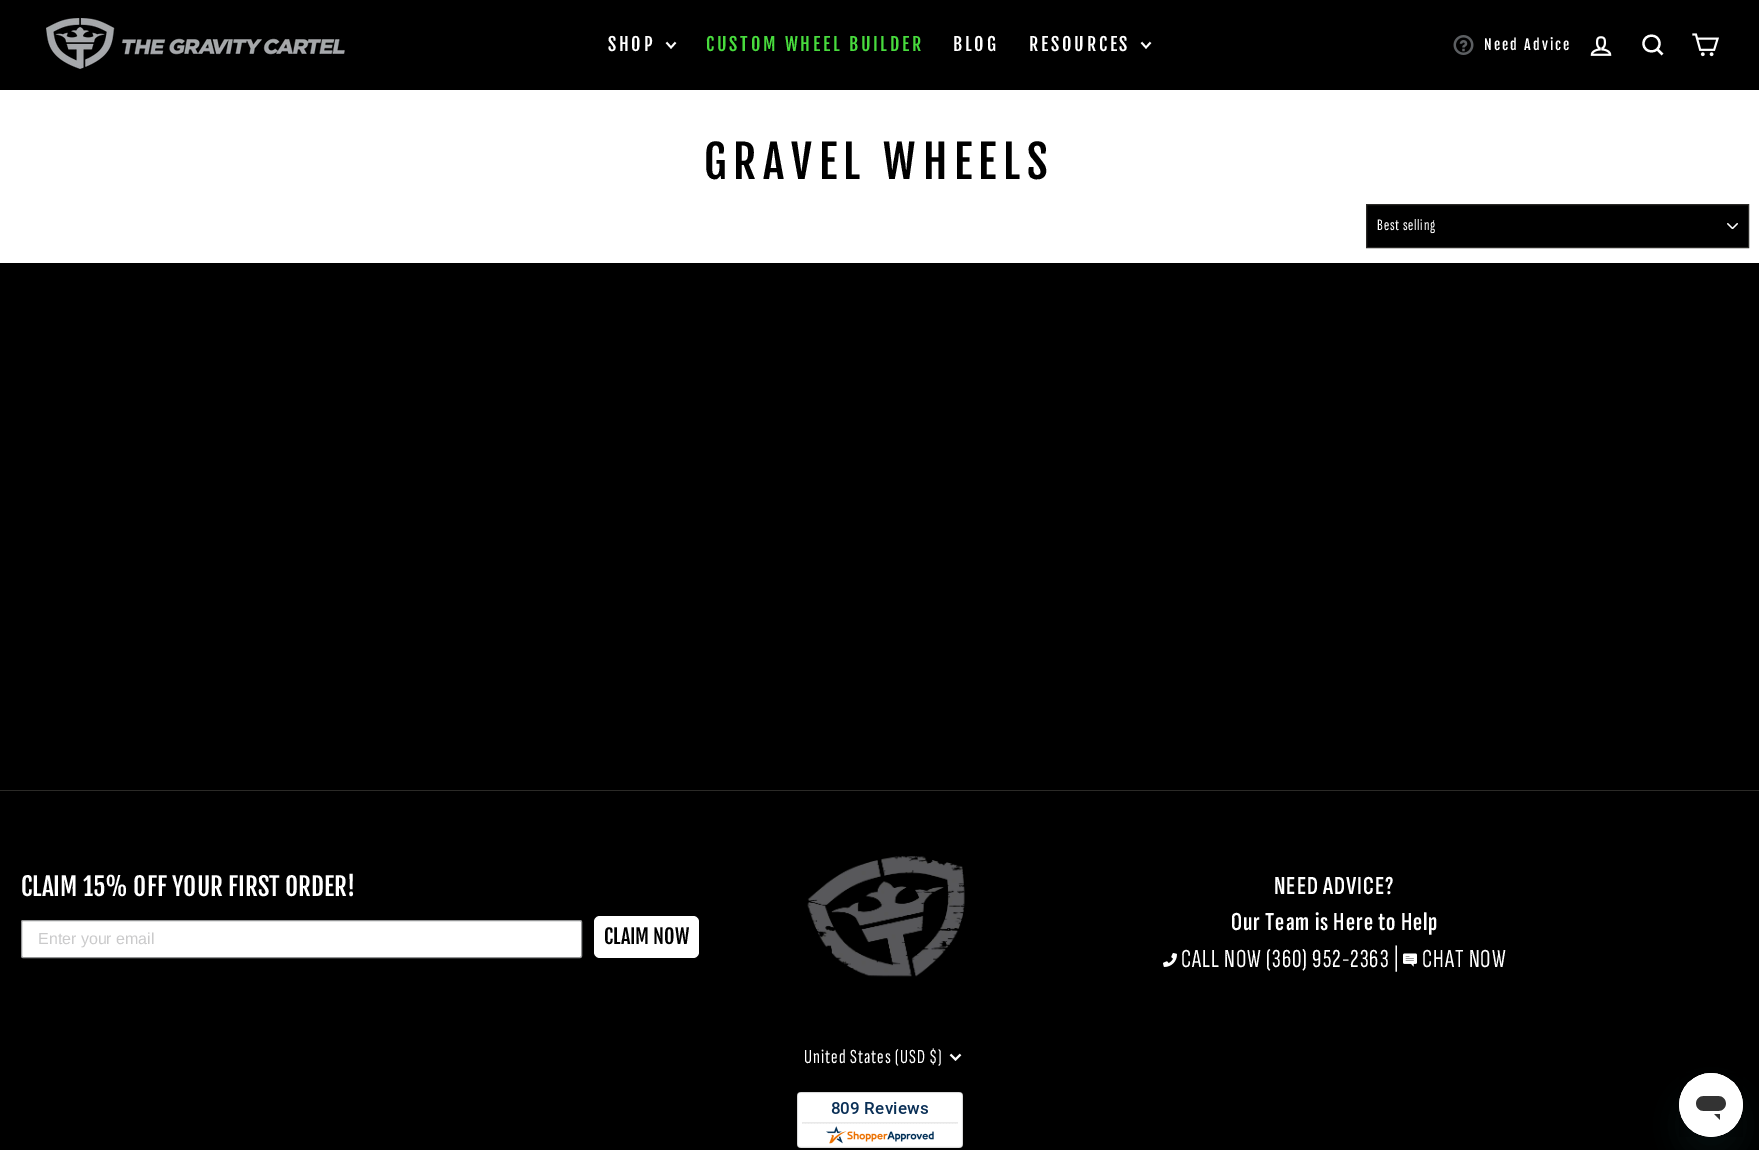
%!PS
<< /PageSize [1759 1150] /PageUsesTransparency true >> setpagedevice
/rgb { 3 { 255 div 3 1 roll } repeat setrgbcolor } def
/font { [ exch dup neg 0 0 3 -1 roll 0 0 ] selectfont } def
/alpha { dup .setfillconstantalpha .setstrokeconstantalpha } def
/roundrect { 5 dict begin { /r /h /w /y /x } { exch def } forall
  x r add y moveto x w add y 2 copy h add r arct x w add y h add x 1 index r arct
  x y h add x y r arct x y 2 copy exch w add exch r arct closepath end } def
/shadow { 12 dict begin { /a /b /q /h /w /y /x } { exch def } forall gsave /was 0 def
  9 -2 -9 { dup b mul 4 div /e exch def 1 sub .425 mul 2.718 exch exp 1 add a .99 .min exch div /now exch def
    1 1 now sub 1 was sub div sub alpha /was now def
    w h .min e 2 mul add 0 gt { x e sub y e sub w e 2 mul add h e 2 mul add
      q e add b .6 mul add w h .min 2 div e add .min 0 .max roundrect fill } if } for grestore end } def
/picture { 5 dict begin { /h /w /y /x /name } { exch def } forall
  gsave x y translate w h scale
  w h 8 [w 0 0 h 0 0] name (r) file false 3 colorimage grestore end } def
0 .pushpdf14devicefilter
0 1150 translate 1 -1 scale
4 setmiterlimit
0 0 0 rgb
0 0 1759 1150 rectfill
(img/1.rgb) 46 18 299 51 picture
255 255 255 rgb
1.8 setlinewidth
666.5 42.5 moveto 671 47.5 lineto 675.5 42.5 lineto stroke
1141.5 42.5 moveto 1146 47.5 lineto 1150.5 42.5 lineto stroke
(img/2.rgb) 1453 35 21 20 picture
(img/3.rgb) 1590 36 22 20 picture
2.2 setlinewidth
1659.5 43.5 moveto 1659.5 54 1643.5 54 1643.5 43.5 curveto 1643.5 33 1659.5 33 1659.5 43.5 curveto closepath 1662.5 54.5 moveto 1657.5 49.5 lineto stroke
(img/4.rgb) 1692 33 27 24 picture
0 90 1759 173 rectfill
0 0 0 rgb
1367 205 381 42 rectfill
(img/5.rgb) 1727 223 11 6 picture
43 42 39 rgb
1 setlinewidth
1366.5 204.5 382 43 rectstroke
0 790 1759 1 rectfill
255 255 255 rgb
21.5 920.5 560 37 1.5 roundrect gsave fill grestore
148 149 150 rgb
stroke
255 255 255 rgb
594 916 105 42 6 roundrect fill
(img/6.rgb) 807 856 158 121 picture
(img/7.rgb) 1163 953 14 14 picture
(img/8.rgb) 1403 953 14 14 picture
2 setlinewidth
950.5 1054.5 moveto 955.5 1059.5 lineto 960.5 1054.5 lineto stroke
(img/9.rgb) 797 1092 166 56 picture
23 73 77 rgb
1679 1093 64 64 32 15 0.15 shadow
(img/10.rgb) 1679 1073 64 64 picture
/FjallaOne-Regular 18 font
255 255 255 rgb
608 51 moveto 2.75 0 (SHOP) ashow
72 219 61 rgb
706 51 moveto 2.75 0 (CUSTOM WHEEL BUILDER) ashow
255 255 255 rgb
953 51 moveto 2.75 0 (BLOG) ashow
1029 51 moveto 2.75 0 (RESOURCES) ashow
/FjallaOne-Regular 14 font
1484 50 moveto 2.1 0 (Need Advice) ashow
/FjallaOne-Regular 45 font
0 0 0 rgb
704 179 moveto 6.75 0 (GRAVEL WHEELS) ashow
/SofiaSansExtraCondensed-Regular 16 font
255 255 255 rgb
1377 230 moveto 0.75 0 (Best selling) ashow
/FjallaOne-Regular 25 font
21 896 moveto (CLAIM 15% OFF YOUR FIRST ORDER!) show
/LiberationSans-Regular 16 font
202 202 203 rgb
38 944 moveto (Enter your email) show
/FjallaOne-Regular 20 font
0 0 0 rgb
604 944 moveto (CLAIM NOW) show
/SofiaSansExtraCondensed-SemiBold 26 font
255 255 255 rgb
1274 894 moveto 1 0 (NEED ADVICE?) ashow
1231 930 moveto 1 0 (Our Team is Here to Help) ashow
/SofiaSansExtraCondensed-Regular 26 font
1181 967 moveto 1 0 (CALL NOW \(360\) 952-2363 |) ashow
1422 967 moveto 1 0 (CHAT NOW) ashow
/SofiaSansExtraCondensed-Regular 20 font
804 1063 moveto 1 0 (United States \(USD $\)) ashow
.poppdf14devicefilter showpage
